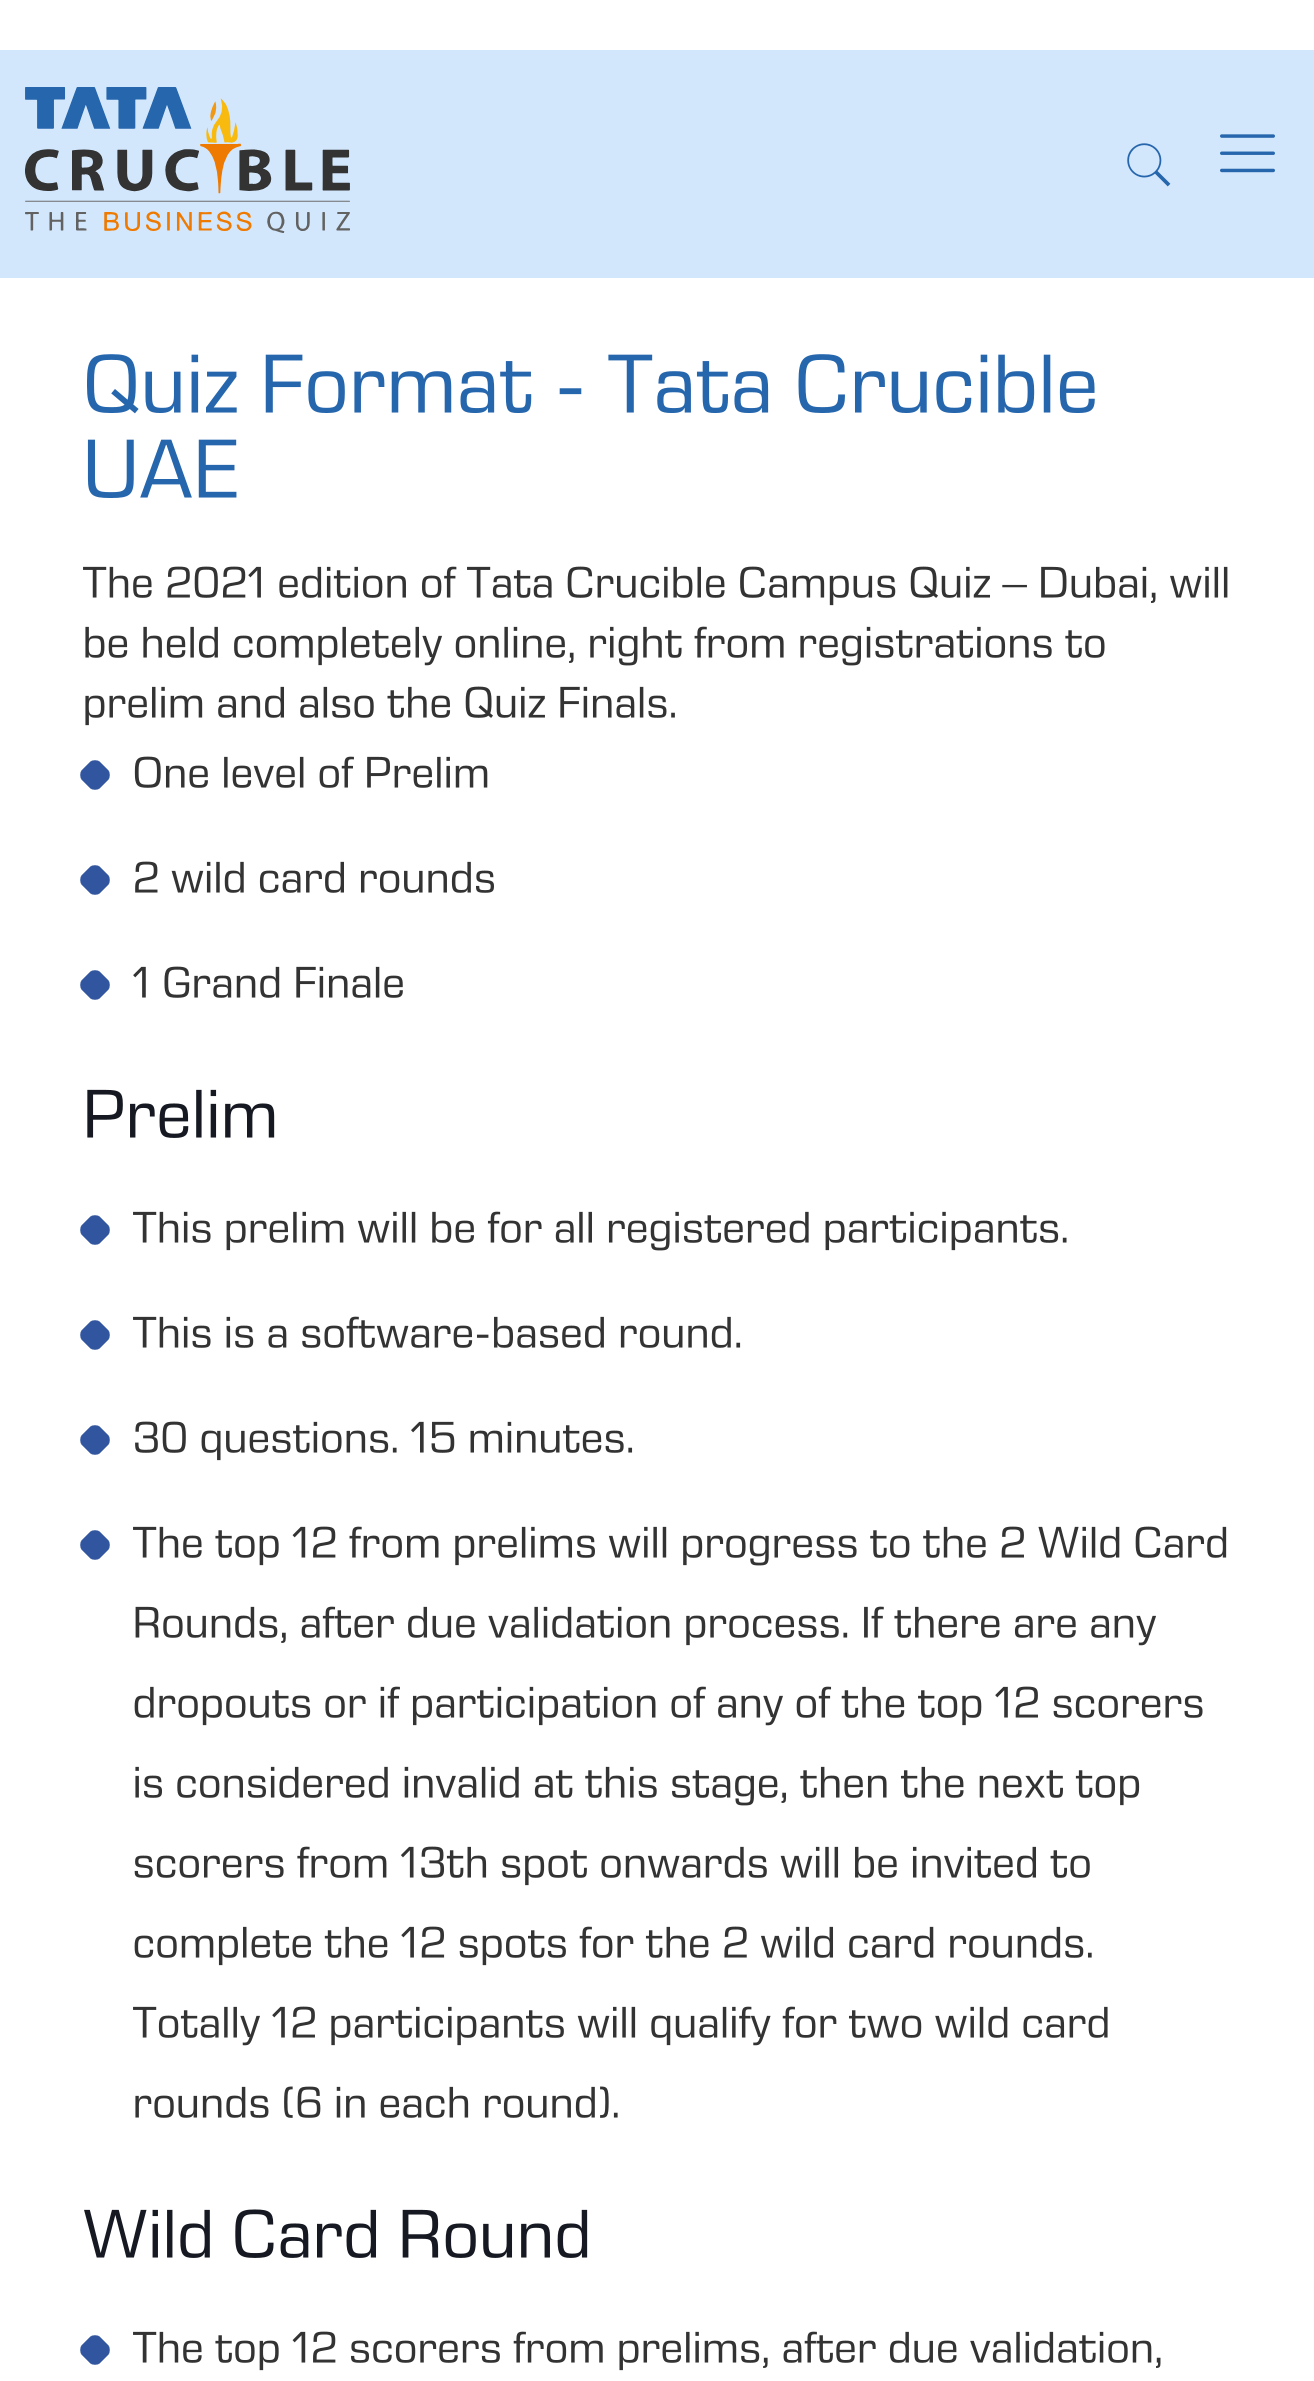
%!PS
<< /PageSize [1314 2381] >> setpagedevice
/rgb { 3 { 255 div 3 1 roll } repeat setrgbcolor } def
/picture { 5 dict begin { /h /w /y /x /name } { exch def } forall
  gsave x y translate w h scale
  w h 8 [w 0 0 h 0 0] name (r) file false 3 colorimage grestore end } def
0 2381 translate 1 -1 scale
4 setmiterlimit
255 255 255 rgb
0 0 1314 2381 rectfill
211 231 252 rgb
0 50 1314 228 rectfill
(img/1.rgb) 25 87 325 146 picture
(img/2.rgb) 1220 134 55 39 picture
(img/3.rgb) 1127 143 44 44 picture
(img/4.rgb) 87 354 1008 60 picture
(img/5.rgb) 87 439 150 59 picture
(img/6.rgb) 83 566 1145 40 picture
(img/7.rgb) 85 626 1020 40 picture
(img/8.rgb) 85 686 590 40 picture
49 85 158 rgb
100.5 762.5 moveto 107.5 769.5 lineto 110.5 772.5 110.5 777.5 107.5 780.5 curveto 100.5 787.5 lineto 97.5 790.5 92.5 790.5 89.5 787.5 curveto 82.5 780.5 lineto 79.5 777.5 79.5 772.5 82.5 769.5 curveto 89.5 762.5 lineto 92.5 759.5 97.5 759.5 100.5 762.5 curveto closepath fill
(img/9.rgb) 134 756 354 32 picture
100.5 867.5 moveto 107.5 874.5 lineto 110.5 877.5 110.5 882.5 107.5 885.5 curveto 100.5 892.5 lineto 97.5 895.5 92.5 895.5 89.5 892.5 curveto 82.5 885.5 lineto 79.5 882.5 79.5 877.5 82.5 874.5 curveto 89.5 867.5 lineto 92.5 864.5 97.5 864.5 100.5 867.5 curveto closepath fill
(img/10.rgb) 135 861 359 32 picture
100.5 972.5 moveto 107.5 979.5 lineto 110.5 982.5 110.5 987.5 107.5 990.5 curveto 100.5 997.5 lineto 97.5 1000.5 92.5 1000.5 89.5 997.5 curveto 82.5 990.5 lineto 79.5 987.5 79.5 982.5 82.5 979.5 curveto 89.5 972.5 lineto 92.5 969.5 97.5 969.5 100.5 972.5 curveto closepath fill
(img/11.rgb) 133 966 270 32 picture
(img/12.rgb) 87 1089 188 49 picture
100.5 1217.5 moveto 107.5 1224.5 lineto 110.5 1227.5 110.5 1232.5 107.5 1235.5 curveto 100.5 1242.5 lineto 97.5 1245.5 92.5 1245.5 89.5 1242.5 curveto 82.5 1235.5 lineto 79.5 1232.5 79.5 1227.5 82.5 1224.5 curveto 89.5 1217.5 lineto 92.5 1214.5 97.5 1214.5 100.5 1217.5 curveto closepath fill
(img/13.rgb) 133 1211 934 40 picture
100.5 1322.5 moveto 107.5 1329.5 lineto 110.5 1332.5 110.5 1337.5 107.5 1340.5 curveto 100.5 1347.5 lineto 97.5 1350.5 92.5 1350.5 89.5 1347.5 curveto 82.5 1340.5 lineto 79.5 1337.5 79.5 1332.5 82.5 1329.5 curveto 89.5 1322.5 lineto 92.5 1319.5 97.5 1319.5 100.5 1322.5 curveto closepath fill
(img/14.rgb) 133 1316 608 32 picture
100.5 1427.5 moveto 107.5 1434.5 lineto 110.5 1437.5 110.5 1442.5 107.5 1445.5 curveto 100.5 1452.5 lineto 97.5 1455.5 92.5 1455.5 89.5 1452.5 curveto 82.5 1445.5 lineto 79.5 1442.5 79.5 1437.5 82.5 1434.5 curveto 89.5 1427.5 lineto 92.5 1424.5 97.5 1424.5 100.5 1427.5 curveto closepath fill
(img/15.rgb) 135 1421 498 40 picture
100.5 1532.5 moveto 107.5 1539.5 lineto 110.5 1542.5 110.5 1547.5 107.5 1550.5 curveto 100.5 1557.5 lineto 97.5 1560.5 92.5 1560.5 89.5 1557.5 curveto 82.5 1550.5 lineto 79.5 1547.5 79.5 1542.5 82.5 1539.5 curveto 89.5 1532.5 lineto 92.5 1529.5 97.5 1529.5 100.5 1532.5 curveto closepath fill
(img/16.rgb) 133 1526 1094 40 picture
(img/17.rgb) 135 1606 1021 40 picture
(img/18.rgb) 134 1686 1069 40 picture
(img/19.rgb) 135 1766 1005 40 picture
(img/20.rgb) 134 1846 956 40 picture
(img/21.rgb) 134 1926 958 40 picture
(img/22.rgb) 133 2006 975 40 picture
(img/23.rgb) 135 2086 483 32 picture
(img/24.rgb) 84 2209 504 49 picture
100.5 2337.5 moveto 107.5 2344.5 lineto 110.5 2347.5 110.5 2352.5 107.5 2355.5 curveto 100.5 2362.5 lineto 97.5 2365.5 92.5 2365.5 89.5 2362.5 curveto 82.5 2355.5 lineto 79.5 2352.5 79.5 2347.5 82.5 2344.5 curveto 89.5 2337.5 lineto 92.5 2334.5 97.5 2334.5 100.5 2337.5 curveto closepath fill
(img/25.rgb) 133 2331 1028 40 picture
showpage
